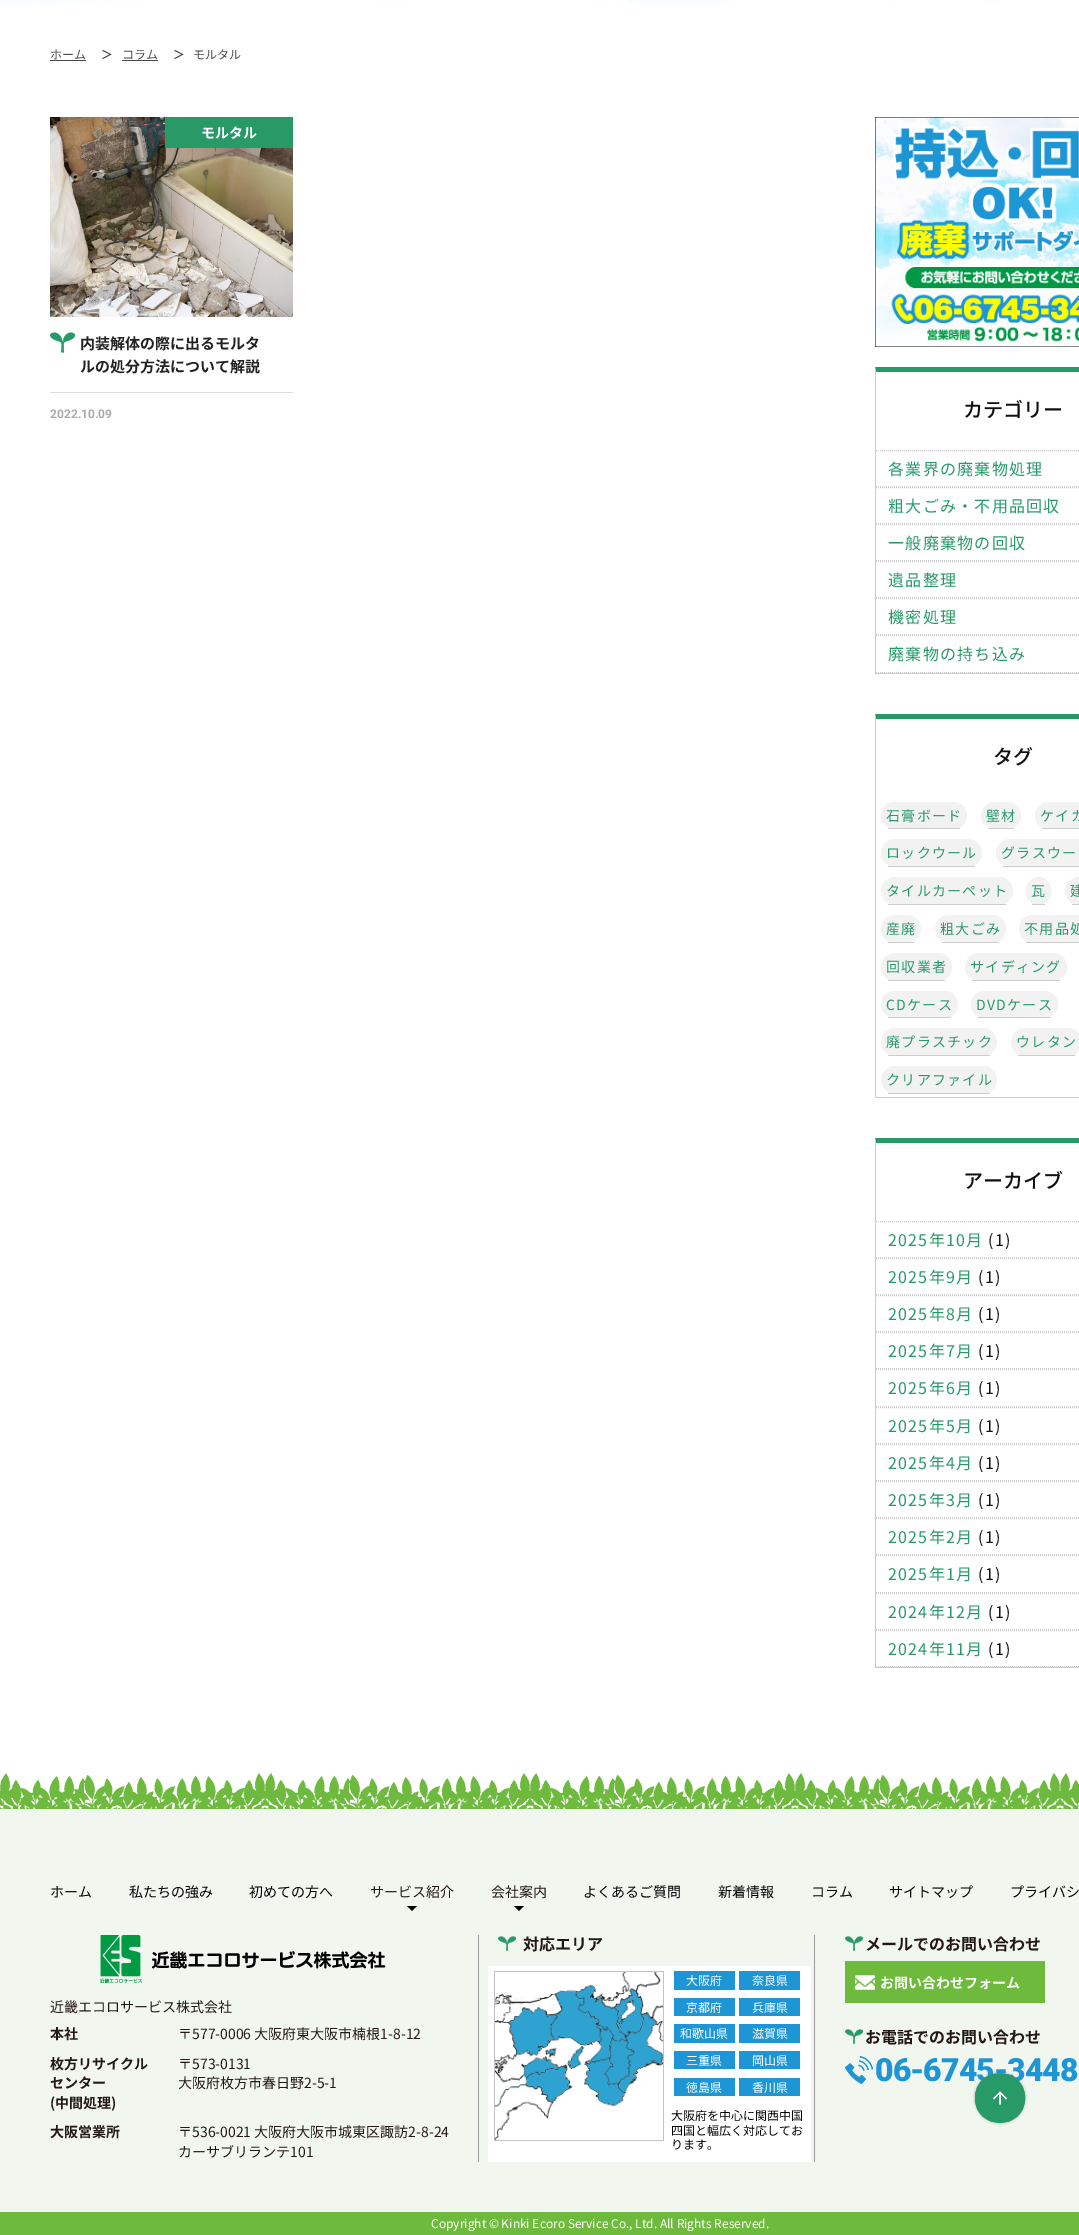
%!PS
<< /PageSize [1079 2235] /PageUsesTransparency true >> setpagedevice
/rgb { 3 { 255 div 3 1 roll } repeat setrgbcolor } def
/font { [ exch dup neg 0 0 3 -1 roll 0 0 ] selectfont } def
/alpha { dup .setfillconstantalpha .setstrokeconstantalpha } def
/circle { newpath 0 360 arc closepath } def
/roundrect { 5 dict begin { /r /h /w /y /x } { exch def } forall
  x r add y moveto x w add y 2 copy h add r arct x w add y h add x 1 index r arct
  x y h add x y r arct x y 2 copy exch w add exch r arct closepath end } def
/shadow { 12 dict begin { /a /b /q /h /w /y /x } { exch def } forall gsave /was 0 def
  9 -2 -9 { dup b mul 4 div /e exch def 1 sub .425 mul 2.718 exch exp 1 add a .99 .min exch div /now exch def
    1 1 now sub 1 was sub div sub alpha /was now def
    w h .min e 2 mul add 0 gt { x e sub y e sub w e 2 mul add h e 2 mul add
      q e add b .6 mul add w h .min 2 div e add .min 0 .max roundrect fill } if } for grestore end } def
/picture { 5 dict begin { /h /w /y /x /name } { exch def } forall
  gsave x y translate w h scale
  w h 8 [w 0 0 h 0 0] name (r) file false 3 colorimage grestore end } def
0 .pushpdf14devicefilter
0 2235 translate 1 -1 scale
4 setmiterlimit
255 255 255 rgb
0 0 1079 2235 rectfill
(img/1.rgb) 0 0 1000 4 picture
74 74 74 rgb
50 60 36 1 rectfill
122 60 36 1 rectfill
(img/2.rgb) 50 117 243 200 picture
39 154 104 rgb
165 117 128 31 rectfill
221 221 221 rgb
50 392 243 1 rectfill
(img/3.rgb) 50 332 25 21 picture
(img/4.rgb) 875 117 204 230 picture
39 154 104 rgb
875 367 moveto 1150 367 lineto 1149 372 lineto 876 372 lineto closepath fill
204 204 204 rgb
875 673 204 1 rectfill
875 674 moveto 875 367 lineto 876 372 lineto 876 673 lineto closepath fill
[1 1] 0 setdash
876 450.5 moveto 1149 450.5 lineto stroke
876 486.5 moveto 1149 486.5 lineto stroke
876 487.5 moveto 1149 487.5 lineto stroke
876 523.5 moveto 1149 523.5 lineto stroke
876 524.5 moveto 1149 524.5 lineto stroke
876 560.5 moveto 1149 560.5 lineto stroke
876 561.5 moveto 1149 561.5 lineto stroke
876 597.5 moveto 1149 597.5 lineto stroke
876 598.5 moveto 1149 598.5 lineto stroke
876 634.5 moveto 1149 634.5 lineto stroke
876 635.5 moveto 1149 635.5 lineto stroke
876 672.5 moveto 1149 672.5 lineto stroke
39 154 104 rgb
875 714 moveto 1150 714 lineto 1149 719 lineto 876 719 lineto closepath fill
204 204 204 rgb
875 1097 204 1 rectfill
875 1098 moveto 875 714 lineto 876 719 lineto 876 1097 lineto closepath fill
242 242 242 rgb
881 802 86 27 13.5 roundrect fill
204 204 204 rgb
888 828 72 1 rectfill
242 242 242 rgb
981 802 40 27 13.5 roundrect fill
204 204 204 rgb
988 828 26 1 rectfill
242 242 242 rgb
1035 802 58 27 13.5 roundrect fill
204 204 204 rgb
1042 828 37 1 rectfill
242 242 242 rgb
881 839 101 28 14 roundrect fill
204 204 204 rgb
888 866 87 1 rectfill
242 242 242 rgb
996 839 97 28 14 roundrect fill
204 204 204 rgb
1003 866 76 1 rectfill
242 242 242 rgb
881 877 132 28 14 roundrect fill
204 204 204 rgb
888 904 118 1 rectfill
242 242 242 rgb
1026 877 25 28 12.5 roundrect fill
204 204 204 rgb
1032 904 13 1 rectfill
242 242 242 rgb
1079 891 14 circle fill
204 204 204 rgb
1072 904 7 1 rectfill
242 242 242 rgb
881 915 40 28 14 roundrect fill
204 204 204 rgb
888 942 26 1 rectfill
242 242 242 rgb
935 915 71 28 14 roundrect fill
204 204 204 rgb
942 942 57 1 rectfill
242 242 242 rgb
1019 915 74 28 14 roundrect fill
204 204 204 rgb
1026 942 53 1 rectfill
242 242 242 rgb
881 953 71 28 14 roundrect fill
204 204 204 rgb
888 980 57 1 rectfill
242 242 242 rgb
965 953 102 28 14 roundrect fill
204 204 204 rgb
972 980 88 1 rectfill
242 242 242 rgb
881 991 77 27 13.5 roundrect fill
204 204 204 rgb
888 1017 63 1 rectfill
242 242 242 rgb
971 991 87 27 13.5 roundrect fill
204 204 204 rgb
978 1017 73 1 rectfill
242 242 242 rgb
881 1028 116 28 14 roundrect fill
204 204 204 rgb
888 1055 102 1 rectfill
242 242 242 rgb
1011 1028 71 28 14 roundrect fill
204 204 204 rgb
1018 1055 57 1 rectfill
242 242 242 rgb
881 1066 116 28 14 roundrect fill
204 204 204 rgb
888 1093 102 1 rectfill
39 154 104 rgb
875 1138 moveto 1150 1138 lineto 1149 1143 lineto 876 1143 lineto closepath fill
204 204 204 rgb
875 1667 204 1 rectfill
875 1668 moveto 875 1138 lineto 876 1143 lineto 876 1667 lineto closepath fill
876 1221.5 moveto 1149 1221.5 lineto stroke
876 1257.5 moveto 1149 1257.5 lineto stroke
876 1258.5 moveto 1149 1258.5 lineto stroke
876 1294.5 moveto 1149 1294.5 lineto stroke
876 1295.5 moveto 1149 1295.5 lineto stroke
876 1331.5 moveto 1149 1331.5 lineto stroke
876 1332.5 moveto 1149 1332.5 lineto stroke
876 1368.5 moveto 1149 1368.5 lineto stroke
876 1369.5 moveto 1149 1369.5 lineto stroke
876 1406.5 moveto 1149 1406.5 lineto stroke
876 1407.5 moveto 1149 1407.5 lineto stroke
876 1443.5 moveto 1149 1443.5 lineto stroke
876 1444.5 moveto 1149 1444.5 lineto stroke
876 1480.5 moveto 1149 1480.5 lineto stroke
876 1481.5 moveto 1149 1481.5 lineto stroke
876 1517.5 moveto 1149 1517.5 lineto stroke
876 1518.5 moveto 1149 1518.5 lineto stroke
876 1554.5 moveto 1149 1554.5 lineto stroke
876 1555.5 moveto 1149 1555.5 lineto stroke
876 1592.5 moveto 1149 1592.5 lineto stroke
876 1593.5 moveto 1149 1593.5 lineto stroke
876 1629.5 moveto 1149 1629.5 lineto stroke
876 1630.5 moveto 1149 1630.5 lineto stroke
876 1666.5 moveto 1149 1666.5 lineto stroke
241 246 239 rgb
0 1808 1079 404 rectfill
(img/5.rgb) 0 1773 1079 36 picture
0 0 0 rgb
407 1906 moveto 417 1906 lineto 412 1911 lineto closepath fill
514 1906 moveto 524 1906 lineto 519 1911 lineto closepath fill
153 153 153 rgb
478 1935 1 227 rectfill
(img/6.rgb) 100 1935 286 48 picture
814 1935 1 227 rectfill
(img/7.rgb) 498 1936 18 15 picture
255 255 255 rgb
488 1966 323 196 rectfill
(img/8.rgb) 494 1971 170 170 picture
[
  [674 1971 61 19 30 149 212]
  [739 1971 61 19 30 149 212]
  [674 1998 61 18 30 149 212]
  [739 1998 61 18 30 149 212]
  [674 2024 61 19 30 149 212]
  [739 2024 61 19 30 149 212]
  [674 2051 61 18 30 149 212]
  [739 2051 61 18 30 149 212]
  [674 2078 61 18 30 149 212]
  [739 2078 61 18 30 149 212]
] { aload pop rgb rectfill } forall
(img/9.rgb) 845 1936 18 15 picture
110 186 61 rgb
845 1961 200 42 rectfill
(img/10.rgb) 855 1975 20 15 picture
(img/9.rgb) 845 2029 18 15 picture
(img/11.rgb) 845 2056 28 28 picture
0 2212 1079 23 rectfill
0 0 0 rgb
975 2073 50 50 25 1.5 0.3 shadow
/NotoSansJP-Regular 12 font
74 74 74 rgb
50 59 moveto (ホーム) show
/NotoSansJP-Bold 12 font
101 59 moveto (＞) show
/NotoSansJP-Regular 12 font
122 59 moveto (コラム) show
/NotoSansJP-Bold 12 font
173 59 moveto (＞) show
/NotoSansJP-Regular 12 font
193 59 moveto (モルタル) show
/NotoSansJP-Bold 14 font
255 255 255 rgb
201 138 moveto (モルタル) show
/NotoSansJP-Bold 15 font
34 34 34 rgb
80 349 moveto (内装解体の際に出るモルタ) show
80 372 moveto (ルの処分方法について解説) show
/Roboto-Bold 12 font
170 170 170 rgb
50 418 moveto (2022.10.09) show
/NotoSansJP-Medium 20 font
17 17 17 rgb
963 417 moveto (カテゴリー) show
/NotoSansJP-Regular 16 font
39 154 104 rgb
888 475 moveto 1.25 0 (各業界の廃棄物処理) ashow
888 512 moveto 1.25 0 (粗大ごみ・不用品回収) ashow
888 549 moveto 1.25 0 (一般廃棄物の回収) ashow
888 586 moveto 1.25 0 (遺品整理) ashow
888 623 moveto 1.25 0 (機密処理) ashow
888 660 moveto 1.25 0 (廃棄物の持ち込み) ashow
/NotoSansJP-Medium 20 font
17 17 17 rgb
993 764 moveto (タグ) show
/NotoSansJP-Regular 14 font
39 154 104 rgb
886 821 moveto 1.25 0 (石膏ボード) ashow
986 821 moveto 1.25 0 (壁材) ashow
1040 821 moveto 1.25 0 (ケイカ) ashow
886 858 moveto 1.25 0 (ロックウール) ashow
1001 858 moveto 1.25 0 (グラスウー) ashow
886 896 moveto 1.25 0 (タイルカーペット) ashow
1031 896 moveto 1.25 0 (瓦) ashow
1070 896 moveto 1.25 0 (建) ashow
886 934 moveto 1.25 0 (産廃) ashow
940 934 moveto 1.25 0 (粗大ごみ) ashow
1024 934 moveto 1.25 0 (不用品処) ashow
886 972 moveto 1.25 0 (回収業者) ashow
970 972 moveto 1.25 0 (サイディング) ashow
886 1010 moveto 1.25 0 (CDケース) ashow
976 1010 moveto 1.25 0 (DVDケース) ashow
886 1047 moveto 1.25 0 (廃プラスチック) ashow
1016 1047 moveto 1.25 0 (ウレタン) ashow
886 1085 moveto 1.25 0 (クリアファイル) ashow
/NotoSansJP-Medium 20 font
17 17 17 rgb
963 1188 moveto (アーカイブ) show
/NotoSansJP-Regular 16 font
39 154 104 rgb
888 1246 moveto 1.25 0 (2025年10月) ashow
17 17 17 rgb
988 1246 moveto 1.25 0 (\(1\)) ashow
39 154 104 rgb
888 1283 moveto 1.25 0 (2025年9月) ashow
17 17 17 rgb
978 1283 moveto 1.25 0 (\(1\)) ashow
39 154 104 rgb
888 1320 moveto 1.25 0 (2025年8月) ashow
17 17 17 rgb
978 1320 moveto 1.25 0 (\(1\)) ashow
39 154 104 rgb
888 1357 moveto 1.25 0 (2025年7月) ashow
17 17 17 rgb
978 1357 moveto 1.25 0 (\(1\)) ashow
39 154 104 rgb
888 1394 moveto 1.25 0 (2025年6月) ashow
17 17 17 rgb
978 1394 moveto 1.25 0 (\(1\)) ashow
39 154 104 rgb
888 1432 moveto 1.25 0 (2025年5月) ashow
17 17 17 rgb
978 1432 moveto 1.25 0 (\(1\)) ashow
39 154 104 rgb
888 1469 moveto 1.25 0 (2025年4月) ashow
17 17 17 rgb
978 1469 moveto 1.25 0 (\(1\)) ashow
39 154 104 rgb
888 1506 moveto 1.25 0 (2025年3月) ashow
17 17 17 rgb
978 1506 moveto 1.25 0 (\(1\)) ashow
39 154 104 rgb
888 1543 moveto 1.25 0 (2025年2月) ashow
17 17 17 rgb
978 1543 moveto 1.25 0 (\(1\)) ashow
39 154 104 rgb
888 1580 moveto 1.25 0 (2025年1月) ashow
17 17 17 rgb
978 1580 moveto 1.25 0 (\(1\)) ashow
39 154 104 rgb
888 1618 moveto 1.25 0 (2024年12月) ashow
17 17 17 rgb
988 1618 moveto 1.25 0 (\(1\)) ashow
39 154 104 rgb
888 1655 moveto 1.25 0 (2024年11月) ashow
17 17 17 rgb
988 1655 moveto 1.25 0 (\(1\)) ashow
/NotoSansJP-Regular 14 font
0 0 0 rgb
[
  [(ホーム) 50 1897]
  [(私たちの強み) 129 1897]
  [(初めての方へ) 249 1897]
] { aload pop moveto show } forall
35 24 21 rgb
370 1897 moveto (サービス紹介) show
491 1897 moveto (会社案内) show
0 0 0 rgb
[
  [(よくあるご質問) 583 1897]
  [(新着情報) 718 1897]
  [(コラム) 811 1897]
  [(サイトマップ) 889 1897]
  [(プライバシ) 1010 1897]
] { aload pop moveto show } forall
35 24 21 rgb
50 2012 moveto (近畿エコロサービス株式会社) show
/NotoSansJP-Bold 14 font
50 2039 moveto (本社) show
/NotoSansJP-Regular 14 font
178 2039 moveto (〒577-0006 大阪府東大阪市楠根1-8-12) show
/NotoSansJP-Bold 14 font
[
  [(枚方リサイクル) 50 2069]
  [(センター) 50 2088]
  [(\(中間処理\)) 50 2108]
] { aload pop moveto show } forall
/NotoSansJP-Regular 14 font
178 2069 moveto (〒573-0131) show
178 2088 moveto (大阪府枚方市春日野2-5-1) show
/NotoSansJP-Bold 14 font
50 2137 moveto (大阪営業所) show
/NotoSansJP-Regular 14 font
178 2137 moveto (〒536-0021 大阪府大阪市城東区諏訪2-8-24) show
178 2157 moveto (カーサブリランテ101) show
/NotoSansJP-Bold 16 font
523 1950 moveto (対応エリア) show
/NotoSansJP-Regular 12 font
255 255 255 rgb
[
  [(大阪府) 686 1985]
  [(奈良県) 752 1985]
  [(京都府) 686 2012]
  [(兵庫県) 752 2012]
  [(和歌山県) 680 2038]
  [(滋賀県) 752 2038]
  [(三重県) 686 2065]
  [(岡山県) 752 2065]
  [(徳島県) 686 2092]
  [(香川県) 752 2092]
] { aload pop moveto show } forall
0 0 0 rgb
[
  [(大阪府を中心に関西中国) 671 2120]
  [(四国と幅広く対応してお) 671 2135]
  [(ります。) 671 2149]
] { aload pop moveto show } forall
/NotoSansJP-Bold 16 font
35 24 21 rgb
865 1950 moveto (メールでのお問い合わせ) show
/NotoSansJP-Bold 14 font
255 255 255 rgb
880 1988 moveto (お問い合わせフォーム) show
/NotoSansJP-Bold 16 font
35 24 21 rgb
865 2043 moveto (お電話でのお問い合わせ) show
/Roboto-Black 32 font
30 149 212 rgb
875 2081 moveto -1 0 (06-6745-3448) ashow
/NotoSansJP-Regular 12 font
255 255 255 rgb
431 2228 moveto (Copyright © Kinki Ecoro Service Co., Ltd. All Rights Reserved.) show
39 154 104 rgb
975 2098 moveto 975 2065 1025 2065 1025 2098 curveto 1025 2131 975 2131 975 2098 curveto closepath fill
[] 0 setdash
975.5 2098 moveto 975.5 2066 1024.5 2066 1024.5 2098 curveto 1024.5 2130.5 975.5 2130.5 975.5 2098 curveto closepath stroke
(img/12.rgb) 993 2091 14 14 picture
.poppdf14devicefilter showpage
